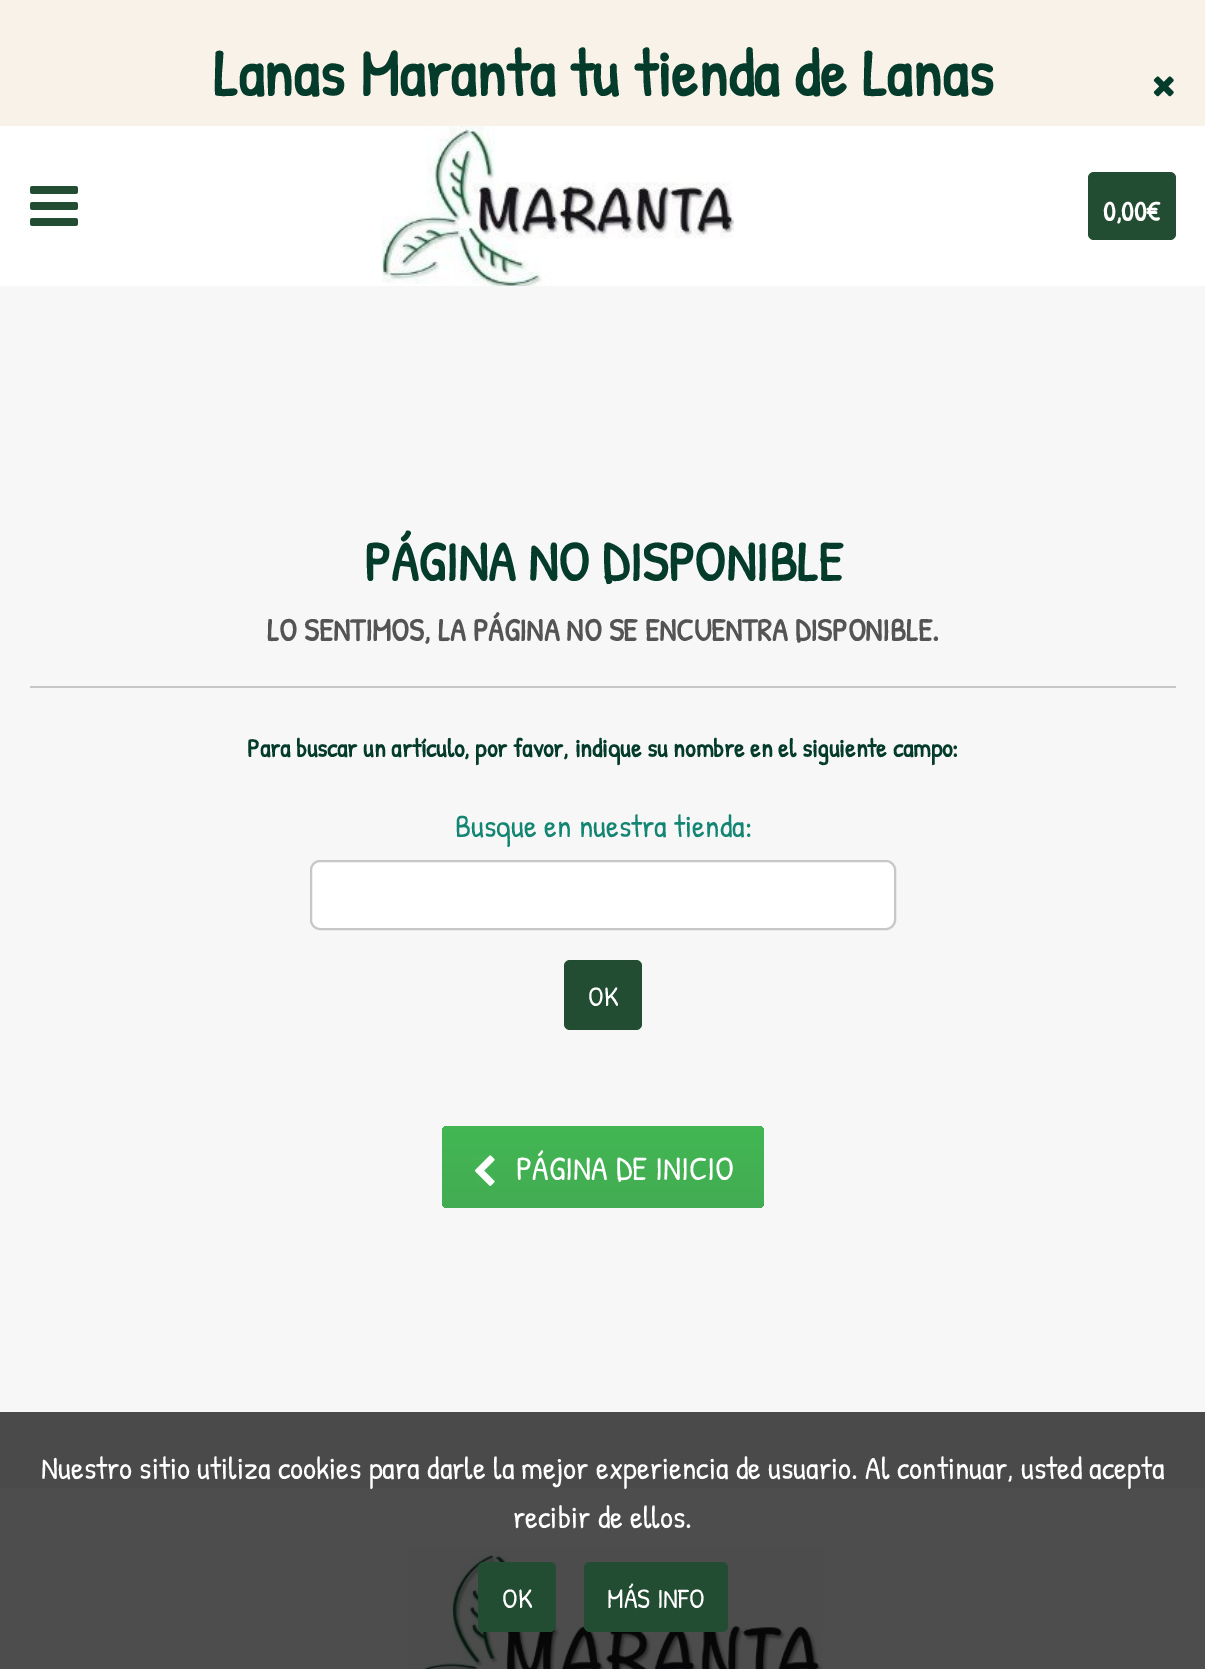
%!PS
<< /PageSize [1205 1669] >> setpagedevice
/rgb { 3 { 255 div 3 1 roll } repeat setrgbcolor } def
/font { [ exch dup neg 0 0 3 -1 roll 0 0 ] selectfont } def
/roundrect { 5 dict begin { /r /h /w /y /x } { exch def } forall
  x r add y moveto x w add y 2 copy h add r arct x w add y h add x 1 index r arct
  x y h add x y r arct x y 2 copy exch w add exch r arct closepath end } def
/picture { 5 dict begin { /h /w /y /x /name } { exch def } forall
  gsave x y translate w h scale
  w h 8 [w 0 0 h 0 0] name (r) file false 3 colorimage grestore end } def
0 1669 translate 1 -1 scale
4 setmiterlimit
255 255 255 rgb
0 0 1205 1669 rectfill
77 77 77 rgb
0 1488 1205 181 rectfill
249 242 232 rgb
0 0 1205 126 rectfill
(img/1.rgb) 1153 76 21 21 picture
(img/2.rgb) 30 186 48 40 picture
(img/3.rgb) 382 126 352 160 picture
34 77 51 rgb
1088 172 88 68 6 roundrect fill
[
  [0 286 1205 1126 247 247 247]
  [0 1412 1205 76 74 74 74]
  [30 686 1146 2 199 199 199]
] { aload pop rgb rectfill } forall
255 255 255 rgb
311 861 584 68 9 roundrect gsave fill grestore
199 199 199 rgb
2 setlinewidth
stroke
34 77 51 rgb
564 960 78 70 6 roundrect fill
gsave 442 1126 322 82 6 roundrect clip newpath
<< /ShadingType 2 /ColorSpace /DeviceRGB /Coords [603 1126 603 1208] /Extend [true true] /Function << /FunctionType 2 /Domain [0 1] /C0 [0.263 0.718 0.329] /C1 [0.259 0.675 0.322] /N 1 >> >> shfill grestore
(img/4.rgb) 474 1155 21 31 picture
(img/5.rgb) 409 1547 414 122 picture
478 1562 78 70 6 roundrect fill
584 1562 144 70 6 roundrect fill
/PatrickHand-Bold 66 font
4 59 42 rgb
213 96 moveto (Lanas Maranta tu tienda de Lanas) show
/PatrickHand-Bold 28 font
255 255 255 rgb
1103 221 moveto (0,00€) show
/PatrickHand-Bold 56 font
4 59 42 rgb
364 581 moveto (PÁGINA NO DISPONIBLE) show
/PatrickHand-Bold 32 font
85 84 84 rgb
267 641 moveto (LO SENTIMOS, LA PÁGINA NO SE ENCUENTRA DISPONIBLE.) show
/PatrickHand-Bold 26 font
4 59 42 rgb
247 757 moveto (Para buscar un artículo, por favor, indique su nombre en el siguiente campo:) show
/PatrickHand-Regular 32 font
19 133 115 rgb
455 837 moveto (Busque en nuestra tienda:) show
/PatrickHand-Regular 28 font
255 255 255 rgb
588 1006 moveto (OK) show
/PatrickHand-Regular 34 font
516 1180 moveto (PÁGINA DE INICIO) show
/PatrickHand-Regular 32 font
41 1479 moveto (Nuestro sitio utiliza cookies para darle la mejor experiencia de usuario. Al continuar, usted acepta) show
513 1528 moveto (recibir de ellos.) show
/PatrickHand-Regular 28 font
502 1608 moveto (OK) show
607 1608 moveto (MÁS INFO) show
showpage
